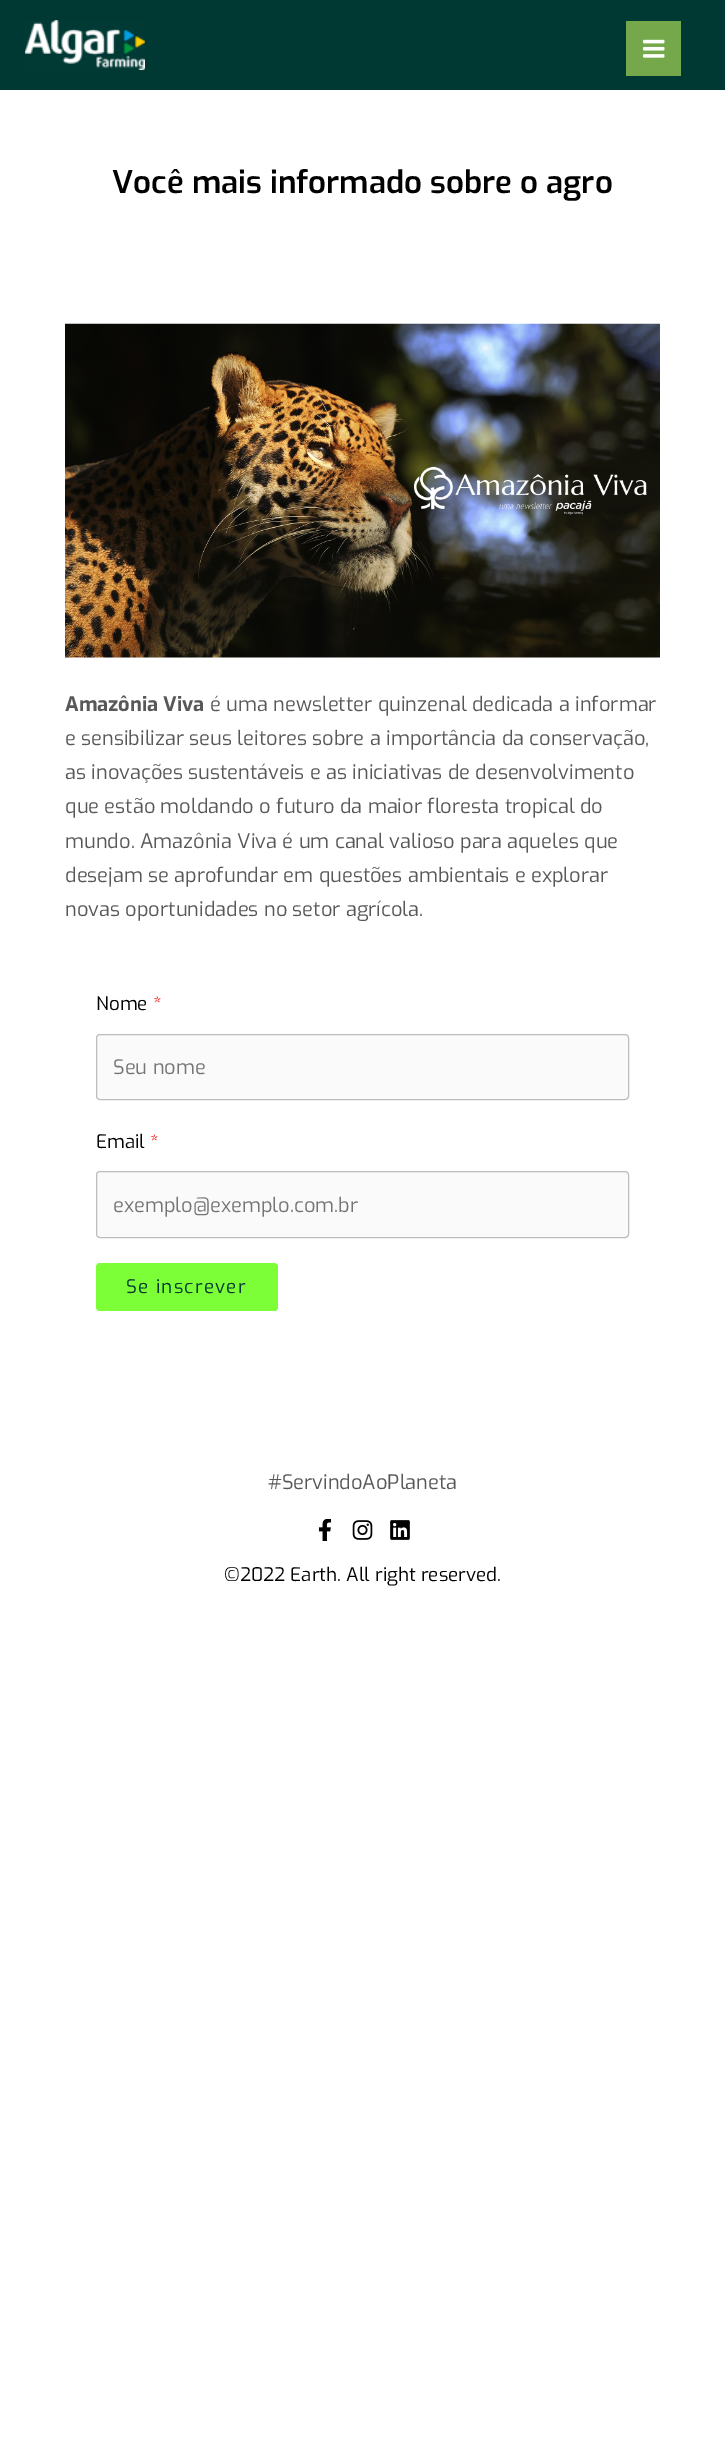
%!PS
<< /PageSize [725 2458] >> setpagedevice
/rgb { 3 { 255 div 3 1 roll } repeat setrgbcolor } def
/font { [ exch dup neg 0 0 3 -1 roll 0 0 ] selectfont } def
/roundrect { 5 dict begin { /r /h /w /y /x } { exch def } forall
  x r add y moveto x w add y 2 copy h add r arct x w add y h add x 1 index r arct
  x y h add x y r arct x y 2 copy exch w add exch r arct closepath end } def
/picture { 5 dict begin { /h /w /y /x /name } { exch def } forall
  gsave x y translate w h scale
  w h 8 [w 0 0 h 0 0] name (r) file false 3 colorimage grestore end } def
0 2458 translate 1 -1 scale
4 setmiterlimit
255 255 255 rgb
0 0 725 2458 rectfill
0 56 51 rgb
0 0 725 90 rectfill
(img/1.rgb) 25 20 120 50 picture
116 168 74 rgb
626 21 55 55 rectfill
(img/2.rgb) 643 39 22 19 picture
(img/3.rgb) 65 323 595 335 picture
250 250 250 rgb
96.5 1034.5 532 65 3.5 roundrect gsave fill grestore
189 189 189 rgb
stroke
250 250 250 rgb
96.5 1171.5 532 66 3.5 roundrect gsave fill grestore
189 189 189 rgb
stroke
125 255 55 rgb
96 1263 182 48 4 roundrect fill
(img/4.rgb) 318 1519 14 22 picture
(img/5.rgb) 352 1520 21 20 picture
(img/6.rgb) 390 1520 20 20 picture
/Exo-SemiBold 31.25 font
0 0 0 rgb
112 193 moveto (Você mais informado sobre o agro) show
/Exo-Bold 20 font
88 88 88 rgb
65 711 moveto (Amazônia Viva) show
/Exo-Regular 20 font
[
  [(é uma newsletter quinzenal dedicada a informar) 210 711]
  [(e sensibilizar seus leitores sobre a importância da conservação,) 65 745]
  [(as inovações sustentáveis e as iniciativas de desenvolvimento) 65 779]
  [(que estão moldando o futuro da maior floresta tropical do) 65 813]
  [(mundo. Amazônia Viva é um canal valioso para aqueles que) 65 848]
  [(desejam se aprofundar em questões ambientais e explorar) 65 882]
  [(novas oportunidades no setor agrícola.) 65 916]
] { aload pop moveto show } forall
/Exo-Regular 18.75 font
0 0 0 rgb
96 1010 moveto (Nome) show
255 0 0 rgb
153 1010 moveto (*) show
/Exo-Regular 20 font
117 117 117 rgb
113 1074 moveto (Seu nome) show
/Exo-Regular 18.75 font
0 0 0 rgb
96 1148 moveto (Email) show
255 0 0 rgb
150 1148 moveto (*) show
/Exo-Regular 20 font
117 117 117 rgb
113 1212 moveto (exemplo@exemplo.com.br) show
/Exo-Regular 18.75 font
0 55 50 rgb
126 1293 moveto 1.25 0 (Se inscrever) ashow
/Exo-Regular 20 font
88 88 88 rgb
268 1489 moveto (#ServindoAoPlaneta) show
/Exo-Regular 18.75 font
0 0 0 rgb
224 1581 moveto (©2022 Earth. All right reserved.) show
showpage
